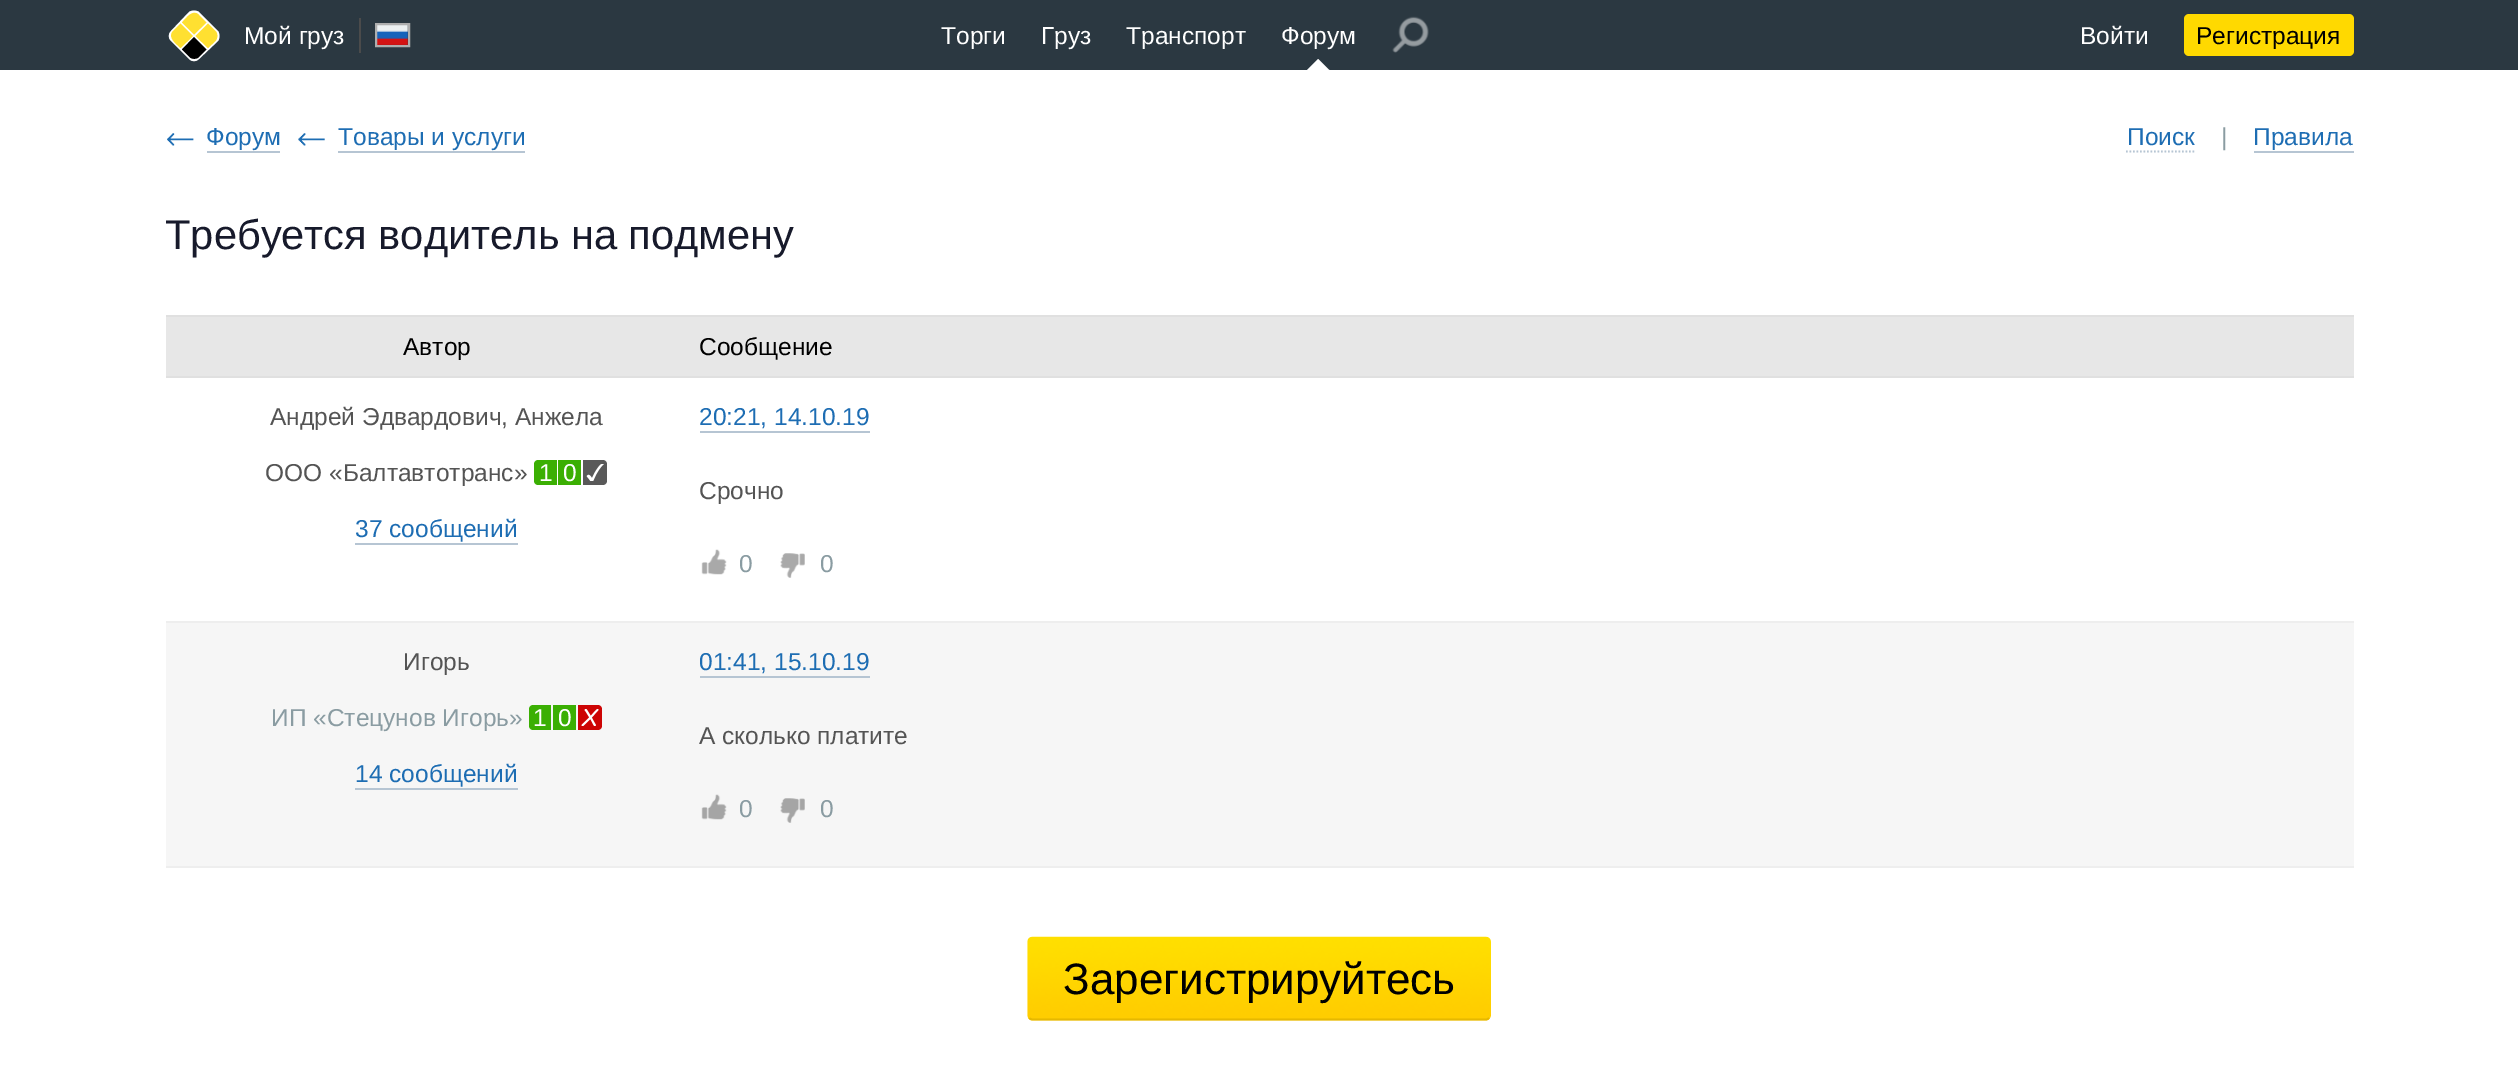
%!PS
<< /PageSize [2518 1085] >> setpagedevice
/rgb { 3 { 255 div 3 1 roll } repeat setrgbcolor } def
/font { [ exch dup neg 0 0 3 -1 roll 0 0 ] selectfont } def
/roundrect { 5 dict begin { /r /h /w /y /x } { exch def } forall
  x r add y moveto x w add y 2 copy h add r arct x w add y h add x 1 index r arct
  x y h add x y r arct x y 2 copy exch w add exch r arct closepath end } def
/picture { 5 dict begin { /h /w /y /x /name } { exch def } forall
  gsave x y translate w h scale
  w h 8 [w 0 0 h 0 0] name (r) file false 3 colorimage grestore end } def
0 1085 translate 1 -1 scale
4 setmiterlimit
255 255 255 rgb
0 0 2518 1085 rectfill
43 56 65 rgb
0 0 2518 70 rectfill
255 255 255 rgb
199 12 moveto 218 31 lineto 220 34 220 38 218 41 curveto 199 59 lineto 196 62 192 62 189 59 curveto 171 41 lineto 168 38 168 34 171 31 curveto 189 12 lineto 192 10 196 10 199 12 curveto closepath fill
255 224 49 rgb
199 15 moveto 206.5 22.5 lineto 194 34.5 lineto 182 22.5 lineto 186 18 193 8.5 199 15 curveto closepath fill
208 23.5 moveto 215.5 31 lineto 218 33.5 218 38 215.5 41 curveto 208 48 lineto 195.5 36 lineto closepath 180.5 23.5 moveto 193 36 lineto 180.5 48 lineto 176.5 44 167 37.5 173 31 curveto closepath fill
0 0 0 rgb
194 37 moveto 206.5 49.5 lineto 199 57 lineto 196.5 59.5 192 59.5 189.5 57 curveto 182 49.5 lineto closepath fill
75 75 75 rgb
359 18 2 35 rectfill
(img/1.rgb) 377 25 31 20 picture
174 174 174 rgb
2 setlinewidth
376 24 33 22 rectstroke
gsave
1281 0 75 70 rectclip
255 255 255 rgb
1318 59 moveto 1362 102 lineto 1318 146 lineto 1275 102 lineto closepath fill
grestore
(img/2.rgb) 1392 16 37 37 picture
255 217 0 rgb
2184 14 170 42 5 roundrect fill
(img/3.rgb) 167 133 27 13 picture
182 197 211 rgb
207 151 73 2 rectfill
(img/4.rgb) 298 133 27 13 picture
338 151 187 2 rectfill
1.8 setlinewidth
[1.75 1.75] 0 setdash
2126 151.5 moveto 2194.5 151.5 lineto stroke
2254 151 100 2 rectfill
224 224 224 rgb
166 319 moveto 166 378 lineto 691 378 lineto 691 376 lineto 166 376 lineto closepath fill
166 315 moveto 166 375 lineto 166 317 lineto 691 317 lineto 691 315 lineto closepath fill
231 231 231 rgb
166 317 2188 59 rectfill
224 224 224 rgb
691 319 moveto 691 378 lineto 2354 378 lineto 2354 319 lineto 2354 376 lineto 691 376 lineto closepath fill
691 315 moveto 691 375 lineto 691 317 lineto 2354 317 lineto 2354 375 lineto 2354 315 lineto closepath fill
238 238 238 rgb
166 378 moveto 166 623 lineto 691 623 lineto 691 621 lineto 166 621 lineto closepath fill
59 175 3 rgb
538 460 moveto 557 460 lineto 557 485 lineto 538 485 lineto 536 485 534 483 534 481 curveto 534 464 lineto 534 462 536 460 538 460 curveto closepath fill
558 460 23 25 rectfill
89 89 89 rgb
583 460 moveto 603 460 lineto 605 460 607 462 607 464 curveto 607 481 lineto 607 483 605 485 603 485 curveto 583 485 lineto closepath fill
(img/5.rgb) 586 464 18 17 picture
182 197 211 rgb
355 543 163 2 rectfill
238 238 238 rgb
691 378 moveto 691 623 lineto 2354 623 lineto 2354 378 lineto 2354 621 lineto 691 621 lineto closepath fill
182 197 211 rgb
700 431 170 2 rectfill
(img/6.rgb) 701 549 26 26 picture
(img/7.rgb) 780 553 25 25 picture
246 246 246 rgb
166 623 2188 243 rectfill
238 238 238 rgb
166 623 moveto 166 868 lineto 691 868 lineto 691 866 lineto 166 866 lineto closepath fill
59 175 3 rgb
533 705 moveto 551 705 lineto 551 730 lineto 533 730 lineto 531 730 529 728 529 726 curveto 529 709 lineto 529 707 531 705 533 705 curveto closepath fill
553 705 23 25 rectfill
205 4 4 rgb
578 705 moveto 598 705 lineto 600 705 602 707 602 709 curveto 602 726 lineto 602 728 600 730 598 730 curveto 578 730 lineto closepath fill
(img/8.rgb) 581 709 18 17 picture
182 197 211 rgb
355 788 163 2 rectfill
238 238 238 rgb
691 623 moveto 691 868 lineto 2354 868 lineto 2354 623 lineto 2354 866 lineto 691 866 lineto closepath fill
182 197 211 rgb
700 676 170 2 rectfill
(img/9.rgb) 701 794 26 26 picture
(img/10.rgb) 780 798 25 25 picture
(img/11.rgb) 1027 936 464 85 picture
230 184 0 rgb
[] 0 setdash
1489 1018 moveto 1488 1019 1487 1019.5 1486 1019.5 curveto 1032.5 1019.5 lineto 1031.5 1019.5 1030 1019 1029.5 1018 curveto stroke
/LiberationSans-Regular 24.5 font
255 255 255 rgb
[
  [(Мой груз) 244 44]
  [(Торги) 941 44]
  [(Груз) 1041 44]
  [(Транспорт) 1126 44]
  [(Форум) 1281 44]
  [(Войти) 2080 44]
] { aload pop moveto show } forall
0 0 0 rgb
2196 44 moveto (Регистрация) show
29 109 179 rgb
[
  [(Форум) 206 145]
  [(Товары и услуги) 338 145]
  [(Поиск) 2127 145]
] { aload pop moveto show } forall
138 156 162 rgb
2221 145 moveto (|) show
29 109 179 rgb
2253 145 moveto (Правила) show
/LiberationSans-Regular 41.6 font
23 26 43 rgb
165 249 moveto (Требуется водитель на подмену) show
/LiberationSans-Regular 24.5 font
0 0 0 rgb
403 355 moveto (Автор) show
699 355 moveto (Сообщение) show
84 84 84 rgb
270 425 moveto (Андрей Эдвардович, Анжела) show
265 481 moveto (ООО «Балтавтотранс») show
255 255 255 rgb
539 481 moveto (1) show
563 481 moveto (0) show
29 109 179 rgb
355 537 moveto (37 сообщений) show
699 425 moveto (20:21, 14.10.19) show
84 84 84 rgb
699 499 moveto (Срочно) show
138 156 162 rgb
739 572 moveto (0) show
820 572 moveto (0) show
84 84 84 rgb
403 670 moveto (Игорь) show
138 156 162 rgb
271 726 moveto (ИП «Стецунов Игорь») show
255 255 255 rgb
533 726 moveto (1) show
558 726 moveto (0) show
29 109 179 rgb
355 782 moveto (14 сообщений) show
699 670 moveto (01:41, 15.10.19) show
84 84 84 rgb
699 744 moveto (А сколько платите) show
138 156 162 rgb
739 817 moveto (0) show
820 817 moveto (0) show
/LiberationSans-Regular 44 font
0 0 0 rgb
1063 994 moveto (Зарегистрируйтесь) show
showpage
